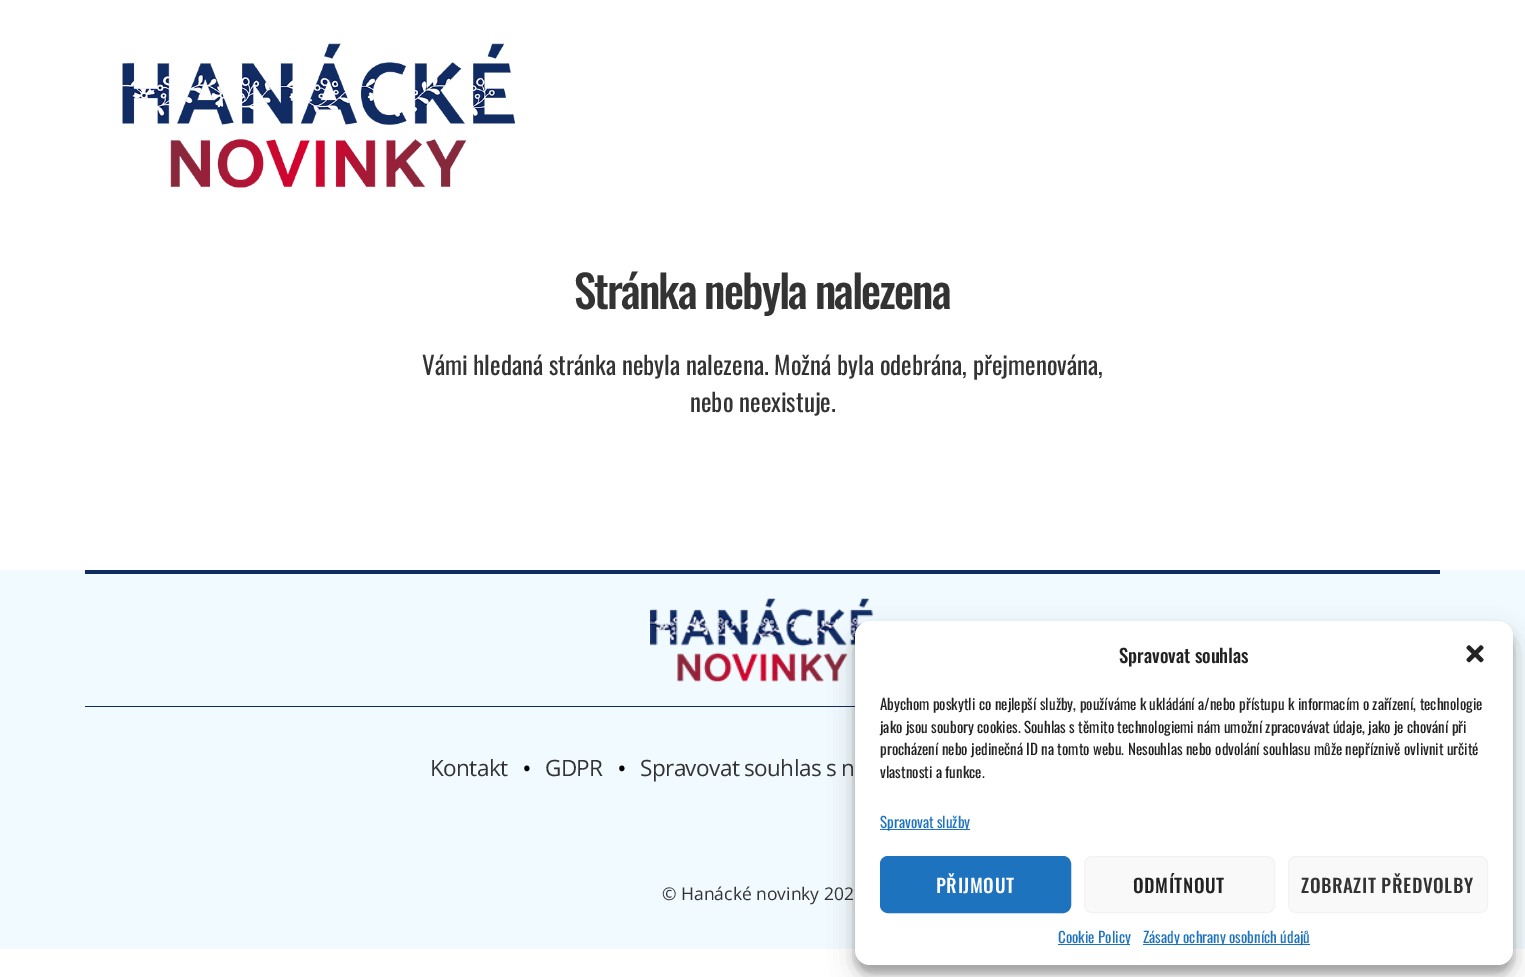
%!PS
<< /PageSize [1525 977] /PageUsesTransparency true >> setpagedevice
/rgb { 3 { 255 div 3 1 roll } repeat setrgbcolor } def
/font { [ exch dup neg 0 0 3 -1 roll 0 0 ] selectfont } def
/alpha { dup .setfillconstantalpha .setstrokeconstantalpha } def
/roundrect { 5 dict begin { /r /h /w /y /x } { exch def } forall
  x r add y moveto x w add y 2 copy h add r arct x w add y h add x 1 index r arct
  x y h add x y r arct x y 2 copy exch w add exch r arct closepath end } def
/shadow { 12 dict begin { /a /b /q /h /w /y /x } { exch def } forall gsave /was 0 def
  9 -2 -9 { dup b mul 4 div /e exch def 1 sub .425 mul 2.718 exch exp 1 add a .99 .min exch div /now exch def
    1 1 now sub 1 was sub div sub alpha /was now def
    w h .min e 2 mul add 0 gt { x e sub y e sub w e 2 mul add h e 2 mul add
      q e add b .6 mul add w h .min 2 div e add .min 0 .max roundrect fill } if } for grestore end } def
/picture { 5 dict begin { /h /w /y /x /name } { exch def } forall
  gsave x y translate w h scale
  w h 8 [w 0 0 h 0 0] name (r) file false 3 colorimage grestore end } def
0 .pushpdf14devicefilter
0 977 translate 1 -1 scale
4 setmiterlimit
255 255 255 rgb
0 0 1525 977 rectfill
(img/1.rgb) 122 43 393 145 picture
[
  [0 570 1525 379 241 250 254]
  [85 570 1355 4 17 44 99]
  [85 706 770 1 17 44 99]
] { aload pop rgb rectfill } forall
(img/2.rgb) 650 598 224 84 picture
0 0 0 rgb
855 629 658 344 15 4 0.23 shadow
855 634 658 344 15 12.5 0.19 shadow
255 255 255 rgb
855 621 658 344 15 roundrect fill
(img/3.rgb) 1466 645 18 18 picture
30 115 190 rgb
880 829 90 1 rectfill
880.5 856.5 190 56 7.5 roundrect gsave fill grestore
stroke
249 249 249 rgb
1084.5 856.5 190 56 7.5 roundrect gsave fill grestore
242 242 242 rgb
stroke
249 249 249 rgb
1288.5 856.5 199 56 7.5 roundrect gsave fill grestore
242 242 242 rgb
stroke
30 115 190 rgb
1058 944 72 1 rectfill
1143 944 167 1 rectfill
/Oswald-Medium 45 font
51 51 51 rgb
574 309 moveto -1.9 0 (Stránka nebyla nalezena) ashow
/Oswald-Regular 25 font
422 375 moveto (Vámi hledaná stránka nebyla nalezena. Možná byla odebrána, přejmenována,) show
690 412 moveto (nebo neexistuje.) show
/OpenSans-Regular 22.5 font
430 776 moveto -0.6 0 (Kontakt) ashow
/OpenSans-Regular 45 font
0 0 0 rgb
521 784 moveto -0.6 0 (·) ashow
/OpenSans-Regular 22.5 font
51 51 51 rgb
545 776 moveto -0.6 0 (GDPR) ashow
/OpenSans-Regular 45 font
0 0 0 rgb
616 784 moveto -0.6 0 (·) ashow
/OpenSans-Regular 22.5 font
51 51 51 rgb
640 776 moveto -0.6 0 (Spravovat souhlas s n) ashow
/Oswald-Medium 18.75 font
34 34 34 rgb
1119 663 moveto (Spravovat souhlas) show
/Oswald-Regular 15 font
[
  [(Abychom poskytli co nejlepší služby, používáme k ukládání a/nebo přístupu k informacím o zařízení, technologie) 880 710]
  [(jako jsou soubory cookies. Souhlas s těmito technologiemi nám umožní zpracovávat údaje, jako je chování při) 880 733]
  [(procházení nebo jedinečná ID na tomto webu. Nesouhlas nebo odvolání souhlasu může nepříznivě ovlivnit určité) 880 755]
  [(vlastnosti a funkce.) 880 778]
] { aload pop moveto show } forall
30 115 190 rgb
880 828 moveto (Spravovat služby) show
/Oswald-Medium 18.75 font
255 255 255 rgb
936 893 moveto 0.6 0 (PŘIJMOUT) ashow
34 34 34 rgb
1133 893 moveto 0.6 0 (ODMÍTNOUT) ashow
51 51 51 rgb
1301 893 moveto 0.6 0 (ZOBRAZIT PŘEDVOLBY) ashow
/Oswald-Regular 15 font
30 115 190 rgb
1058 943 moveto (Cookie Policy) show
1143 943 moveto (Zásady ochrany osobních údajů) show
/OpenSans-Regular 17.5 font
51 51 51 rgb
662 900 moveto (© Hanácké novinky 202) show
.poppdf14devicefilter showpage
